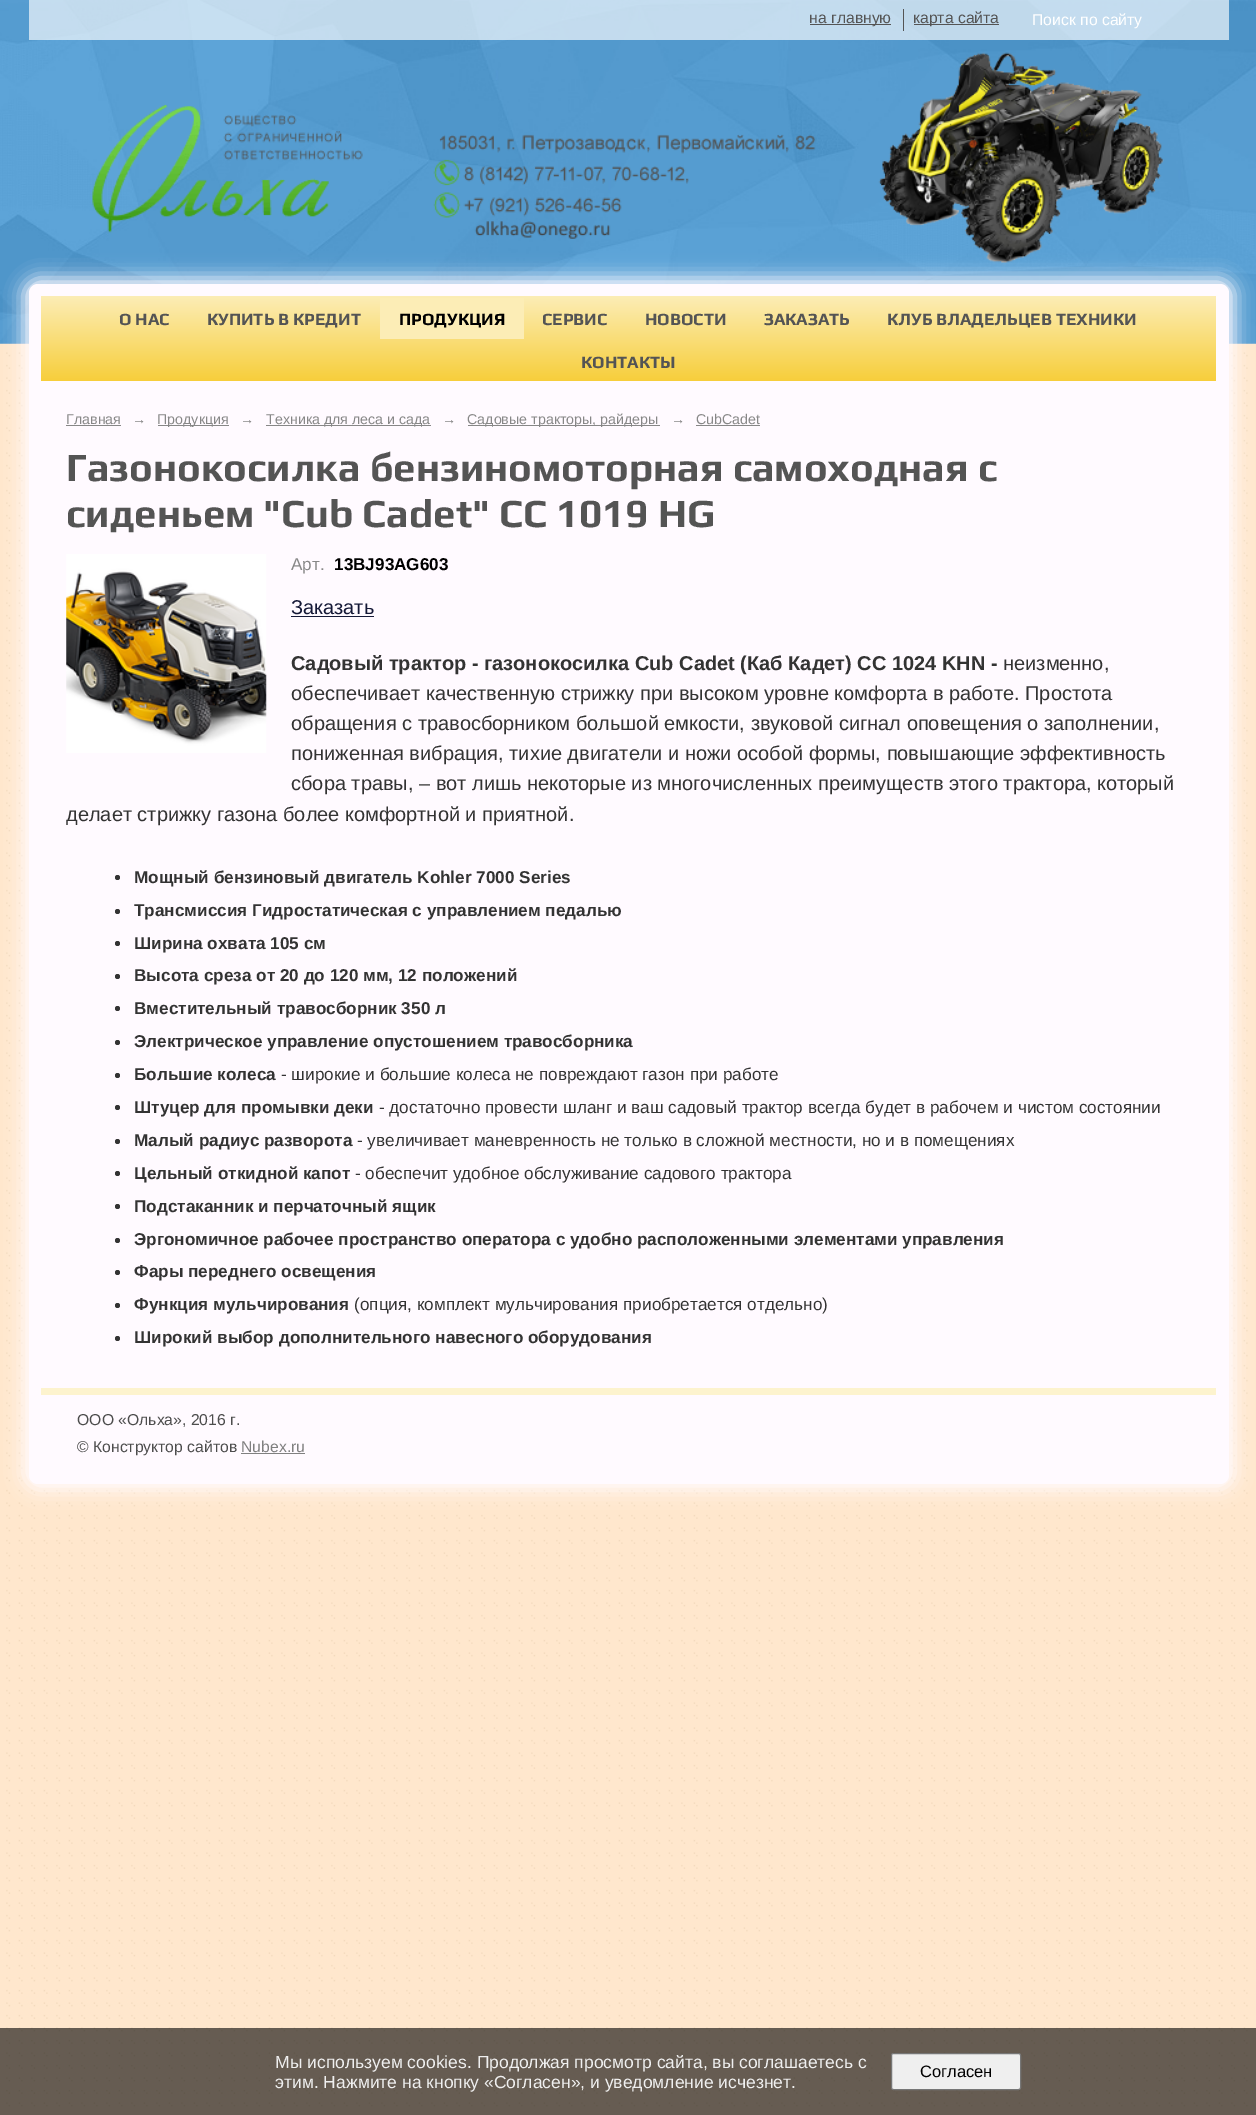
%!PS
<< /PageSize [1256 2115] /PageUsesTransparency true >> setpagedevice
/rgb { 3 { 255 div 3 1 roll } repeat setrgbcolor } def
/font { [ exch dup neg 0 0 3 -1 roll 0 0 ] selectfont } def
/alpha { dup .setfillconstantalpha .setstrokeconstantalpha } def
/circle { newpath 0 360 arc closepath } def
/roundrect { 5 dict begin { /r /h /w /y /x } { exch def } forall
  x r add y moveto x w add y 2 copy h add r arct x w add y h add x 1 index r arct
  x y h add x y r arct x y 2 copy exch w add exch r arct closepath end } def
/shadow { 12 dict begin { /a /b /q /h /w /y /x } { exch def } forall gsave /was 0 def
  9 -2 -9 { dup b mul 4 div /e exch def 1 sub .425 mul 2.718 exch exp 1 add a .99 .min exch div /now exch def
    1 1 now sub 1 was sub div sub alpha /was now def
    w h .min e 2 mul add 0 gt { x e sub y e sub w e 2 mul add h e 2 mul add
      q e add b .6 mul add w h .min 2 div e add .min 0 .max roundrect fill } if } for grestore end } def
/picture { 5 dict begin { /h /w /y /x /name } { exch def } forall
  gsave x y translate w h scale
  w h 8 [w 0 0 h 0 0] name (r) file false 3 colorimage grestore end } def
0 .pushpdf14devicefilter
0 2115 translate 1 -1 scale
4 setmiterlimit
255 255 255 rgb
0 0 1256 2115 rectfill
(img/1.rgb) 0 0 1256 2115 picture
0.65 alpha
[
  [29 0 1200 40 255 255 255]
] { aload pop rgb rectfill } forall
1 alpha
[
  [810 24 81 1 84 84 84]
  [903 9 1 22 84 84 84]
  [914 24 85 1 84 84 84]
] { aload pop rgb rectfill } forall
255 250 255 rgb
23 278 1212 1212 15 9 1 shadow
(img/2.rgb) 92 52 1072 211 picture
29 284 1200 1200 9 roundrect fill
gsave 41 296 moveto 1216 296 lineto 1216 381 lineto 41 381 lineto closepath clip newpath
<< /ShadingType 2 /ColorSpace /DeviceRGB /Coords [629 296 629 381] /Extend [true true] /Function << /FunctionType 2 /Domain [0 1] /C0 [0.988 0.929 0.714] /C1 [0.969 0.808 0.231] /N 1 >> >> shfill grestore
[
  [380 298 144 41 252 237 182]
  [66 425 55 1 135 135 135]
  [158 425 71 1 135 135 135]
  [266 425 165 1 135 135 135]
  [468 425 192 1 135 135 135]
  [696 425 64 1 135 135 135]
] { aload pop rgb rectfill } forall
(img/3.rgb) 66 554 201 199 picture
21 25 55 rgb
291 616 83 1 rectfill
51 51 51 rgb
117.5 877.5 2.5 circle fill
117.5 911.5 2.5 circle fill
117.5 943.5 2.5 circle fill
117.5 976.5 2.5 circle fill
117.5 1008.5 2.5 circle fill
117.5 1042.5 2.5 circle fill
117.5 1075.5 2.5 circle fill
117.5 1107.5 2.5 circle fill
117.5 1141.5 2.5 circle fill
117.5 1173.5 2.5 circle fill
117.5 1206.5 2.5 circle fill
117.5 1240.5 2.5 circle fill
117.5 1272.5 2.5 circle fill
117.5 1305.5 2.5 circle fill
117.5 1338.5 2.5 circle fill
[
  [41 1388 1175 7 253 243 206]
  [241 1453 64 1 128 128 128]
] { aload pop rgb rectfill } forall
0.6 alpha
[
  [0 2028 1256 87 0 0 0]
] { aload pop rgb rectfill } forall
1 alpha
239 239 239 rgb
891.5 2053.5 129 36 2 roundrect gsave fill grestore
118 118 118 rgb
stroke
/LiberationSans-Regular 15.75 font
84 84 84 rgb
809 23 moveto (на главную) show
913 23 moveto (карта сайта) show
255 255 255 rgb
1032 25 moveto (Поиск по сайту) show
/Play-Bold 17.15 font
84 84 84 rgb
119 325 moveto (О НАС) show
207 325 moveto (КУПИТЬ В КРЕДИТ) show
0 0 0 rgb
399 325 moveto (ПРОДУКЦИЯ) show
84 84 84 rgb
[
  [(СЕРВИС) 542 325]
  [(НОВОСТИ) 645 325]
  [(ЗАКАЗАТЬ) 764 325]
  [(КЛУБ ВЛАДЕЛЬЦЕВ ТЕХНИКИ) 887 325]
  [(КОНТАКТЫ) 581 368]
] { aload pop moveto show } forall
/LiberationSans-Regular 14.25 font
135 135 135 rgb
66 424 moveto (Главная) show
/LiberationSans-Italic 14.25 font
132 424 moveto (→) show
/LiberationSans-Regular 14.25 font
157 424 moveto (Продукция) show
/LiberationSans-Italic 14.25 font
240 424 moveto (→) show
/LiberationSans-Regular 14.25 font
266 424 moveto (Техника для леса и сада) show
/LiberationSans-Italic 14.25 font
442 424 moveto (→) show
/LiberationSans-Regular 14.25 font
467 424 moveto (Садовые тракторы, райдеры) show
/LiberationSans-Italic 14.25 font
671 424 moveto (→) show
/LiberationSans-Regular 14.25 font
696 424 moveto (CubCadet) show
/Play-Bold 40 font
84 84 84 rgb
66 481 moveto (Газонокосилка бензиномоторная самоходная с) show
66 527 moveto (сиденьем "Cub Cadet" CC 1019 HG) show
/LiberationSans-Regular 17.15 font
135 135 135 rgb
291 570 moveto (Арт.) show
/LiberationSans-Bold 17.15 font
0 0 0 rgb
334 570 moveto (13BJ93AG603) show
/LiberationSans-Regular 20 font
21 25 55 rgb
291 614 moveto (Заказать) show
/LiberationSans-Bold 20 font
51 51 51 rgb
291 670 moveto (Садовый трактор - газонокосилка Cub Cadet \(Каб Кадет\) CC 1024 KHN -) show
/LiberationSans-Regular 20 font
[
  [(неизменно,) 1003 670]
  [(обеспечивает качественную стрижку при высоком уровне комфорта в работе. Простота) 291 700]
  [(обращения с травосборником большой емкости, звуковой сигнал оповещения о заполнении,) 291 730]
  [(пониженная вибрация, тихие двигатели и ножи особой формы, повышающие эффективность) 291 760]
  [(сбора травы, – вот лишь некоторые из многочисленных преимуществ этого трактора, который) 291 790]
  [(делает стрижку газона более комфортной и приятной.) 66 821]
] { aload pop moveto show } forall
/LiberationSans-Bold 17.15 font
[
  [(Мощный бензиновый двигатель Kohler 7000 Series) 134 883]
  [(Трансмиссия Гидростатическая с управлением педалью) 134 916]
  [(Ширина охвата 105 см) 134 949]
  [(Высота среза от 20 до 120 мм, 12 положений) 134 981]
  [(Вместительный травосборник 350 л) 134 1014]
  [(Электрическое управление опустошением травосборника) 134 1047]
  [(Большие колеса) 134 1080]
] { aload pop moveto show } forall
/LiberationSans-Regular 17.15 font
281 1080 moveto (- широкие и большие колеса не повреждают газон при работе) show
/LiberationSans-Bold 17.15 font
134 1113 moveto (Штуцер для промывки деки) show
/LiberationSans-Regular 17.15 font
379 1113 moveto (- достаточно провести шланг и ваш садовый трактор всегда будет в рабочем и чистом состоянии) show
/LiberationSans-Bold 17.15 font
134 1146 moveto (Малый радиус разворота) show
/LiberationSans-Regular 17.15 font
357 1146 moveto (- увеличивает маневренность не только в сложной местности, но и в помещениях) show
/LiberationSans-Bold 17.15 font
134 1179 moveto (Цельный откидной капот) show
/LiberationSans-Regular 17.15 font
355 1179 moveto (- обеспечит удобное обслуживание садового трактора) show
/LiberationSans-Bold 17.15 font
[
  [(Подстаканник и перчаточный ящик) 134 1212]
  [(Эргономичное рабочее пространство оператора с удобно расположенными элементами управления) 134 1245]
  [(Фары переднего освещения) 134 1277]
  [(Функция мульчирования) 134 1310]
] { aload pop moveto show } forall
/LiberationSans-Regular 17.15 font
354 1310 moveto (\(опция, комплект мульчирования приобретается отдельно\)) show
/LiberationSans-Bold 17.15 font
134 1343 moveto (Широкий выбор дополнительного навесного оборудования) show
/LiberationSans-Regular 15.75 font
77 77 77 rgb
77 1425 moveto (ООО «Ольха», 2016 г.) show
77 1452 moveto (© Конструктор сайтов) show
128 128 128 rgb
241 1452 moveto (Nubex.ru) show
/LiberationSans-Regular 17.5 font
239 239 239 rgb
275 2068 moveto (Мы используем cookies. Продолжая просмотр сайта, вы соглашаетесь с) show
275 2088 moveto (этим. Нажмите на кнопку «Согласен», и уведомление исчезнет.) show
/LiberationSans-Regular 16.5 font
0 0 0 rgb
920 2077 moveto (Согласен) show
.poppdf14devicefilter showpage
